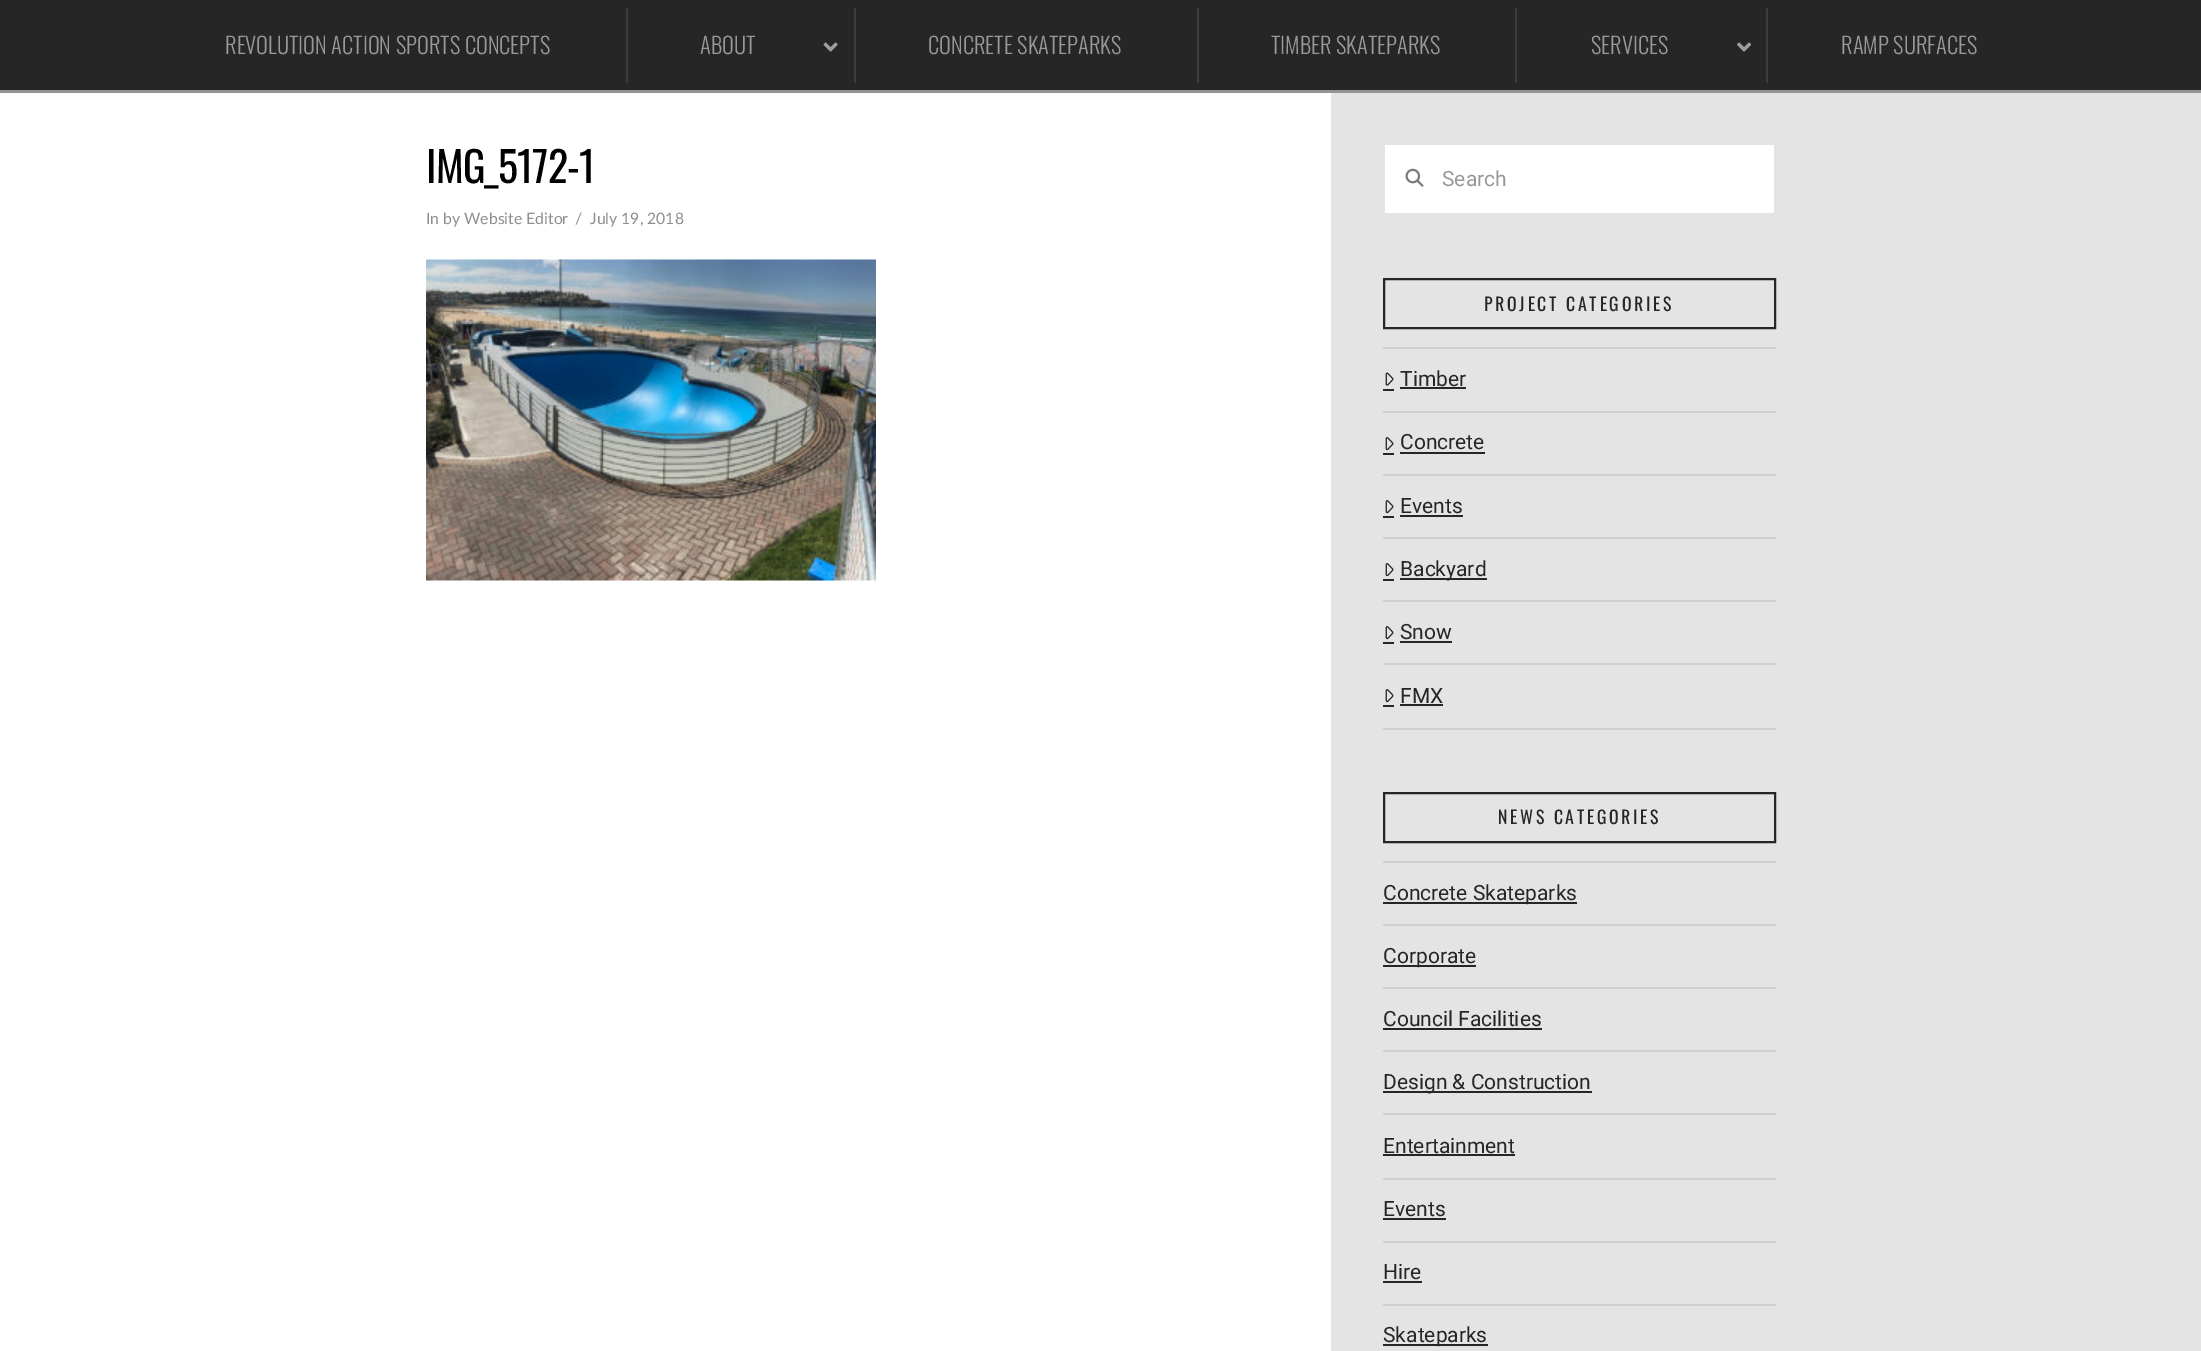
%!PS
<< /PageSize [2201 1351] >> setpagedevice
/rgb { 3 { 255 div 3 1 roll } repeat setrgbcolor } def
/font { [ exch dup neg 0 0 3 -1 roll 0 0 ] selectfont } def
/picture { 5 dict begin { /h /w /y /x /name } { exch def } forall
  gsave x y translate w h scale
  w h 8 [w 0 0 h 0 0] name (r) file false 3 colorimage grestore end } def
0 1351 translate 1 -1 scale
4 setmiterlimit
228 228 228 rgb
0 0 2201 1351 rectfill
[
  [0 0 2201 90 38 38 38]
  [0 90 2201 3 147 147 147]
  [626 8 2 75 60 60 60]
] { aload pop rgb rectfill } forall
(img/1.rgb) 823 42 15 10 picture
[
  [854 8 2 75 60 60 60]
  [1197 8 2 75 60 60 60]
  [1515 8 2 75 60 60 60]
] { aload pop rgb rectfill } forall
(img/2.rgb) 1737 42 15 10 picture
1766 8 2 75 rectfill
255 255 255 rgb
0 93 1331 1258 rectfill
(img/3.rgb) 426 259 450 322 picture
1385 145 389 68 rectfill
(img/4.rgb) 1405 168 19 19 picture
38 38 38 rgb
2 setlinewidth
1384 279 391 49 rectstroke
208 208 208 rgb
1383 347 393 2 rectfill
38 38 38 rgb
1383 389 11 2 rectfill
(img/5.rgb) 1385 372 9 14 picture
[
  [1400 387 66 2 38 38 38]
  [1383 411 393 2 208 208 208]
  [1383 453 11 2 38 38 38]
] { aload pop rgb rectfill } forall
(img/6.rgb) 1385 437 9 14 picture
[
  [1400 452 85 2 38 38 38]
  [1383 474 393 2 208 208 208]
  [1383 516 11 2 38 38 38]
] { aload pop rgb rectfill } forall
(img/6.rgb) 1385 500 9 14 picture
[
  [1400 515 63 2 38 38 38]
  [1383 537 393 2 208 208 208]
  [1383 579 11 2 38 38 38]
] { aload pop rgb rectfill } forall
(img/6.rgb) 1385 563 9 14 picture
[
  [1400 578 87 2 38 38 38]
  [1383 600 393 2 208 208 208]
  [1383 642 11 2 38 38 38]
] { aload pop rgb rectfill } forall
(img/6.rgb) 1385 626 9 14 picture
[
  [1400 641 52 2 38 38 38]
  [1383 663 393 2 208 208 208]
  [1383 728 393 2 208 208 208]
  [1383 705 11 2 38 38 38]
] { aload pop rgb rectfill } forall
(img/6.rgb) 1385 689 9 14 picture
1400 704 43 2 rectfill
1384 793 391 49 rectstroke
[
  [1383 861 393 2 208 208 208]
  [1383 902 194 2 38 38 38]
  [1383 924 393 2 208 208 208]
  [1383 965 93 2 38 38 38]
  [1383 987 393 2 208 208 208]
  [1383 1028 159 2 38 38 38]
  [1383 1050 393 2 208 208 208]
  [1383 1091 209 2 38 38 38]
  [1383 1113 393 2 208 208 208]
  [1383 1154 132 2 38 38 38]
  [1383 1178 393 2 208 208 208]
  [1383 1218 63 2 38 38 38]
  [1383 1241 393 2 208 208 208]
  [1383 1281 39 2 38 38 38]
  [1383 1304 393 2 208 208 208]
  [1383 1344 105 2 38 38 38]
] { aload pop rgb rectfill } forall
/Oswald-Light 22.5 font
153 153 153 rgb
[
  [(REVOLUTION ACTION SPORTS CONCEPTS) 225 54]
  [(ABOUT) 700 54]
  [(CONCRETE SKATEPARKS) 928 54]
  [(TIMBER SKATEPARKS) 1271 54]
  [(SERVICES) 1591 54]
  [(RAMP SURFACES) 1841 54]
] { aload pop moveto show } forall
/Oswald-Regular 42 font
0 0 0 rgb
426 183 moveto -0.75 0 (IMG_5172-1) ashow
/Lato-Regular 15.75 font
142 142 142 rgb
[
  [(In by Website Editor) 426 224]
  [(/) 575 224]
  [(July 19, 2018) 590 224]
] { aload pop moveto show } forall
/Roboto-Regular 21 font
153 153 153 rgb
1442 186 moveto (Search) show
/Oswald-Regular 17.8 font
38 38 38 rgb
1484 311 moveto 2.7 0 (PROJECT CATEGORIES) ashow
/Roboto-Regular 21 font
[
  [(Timber) 1400 386]
  [(Concrete) 1400 449]
  [(Events) 1400 513]
  [(Backyard) 1400 576]
  [(Snow) 1400 639]
  [(FMX) 1400 703]
] { aload pop moveto show } forall
/Oswald-Regular 17.8 font
1498 824 moveto 2.7 0 (NEWS CATEGORIES) ashow
/Roboto-Regular 21 font
[
  [(Concrete Skateparks) 1383 900]
  [(Corporate) 1383 963]
  [(Council Facilities) 1383 1026]
  [(Design & Construction) 1383 1089]
  [(Entertainment) 1383 1153]
  [(Events) 1383 1216]
  [(Hire) 1383 1279]
  [(Skateparks) 1383 1342]
] { aload pop moveto show } forall
showpage
